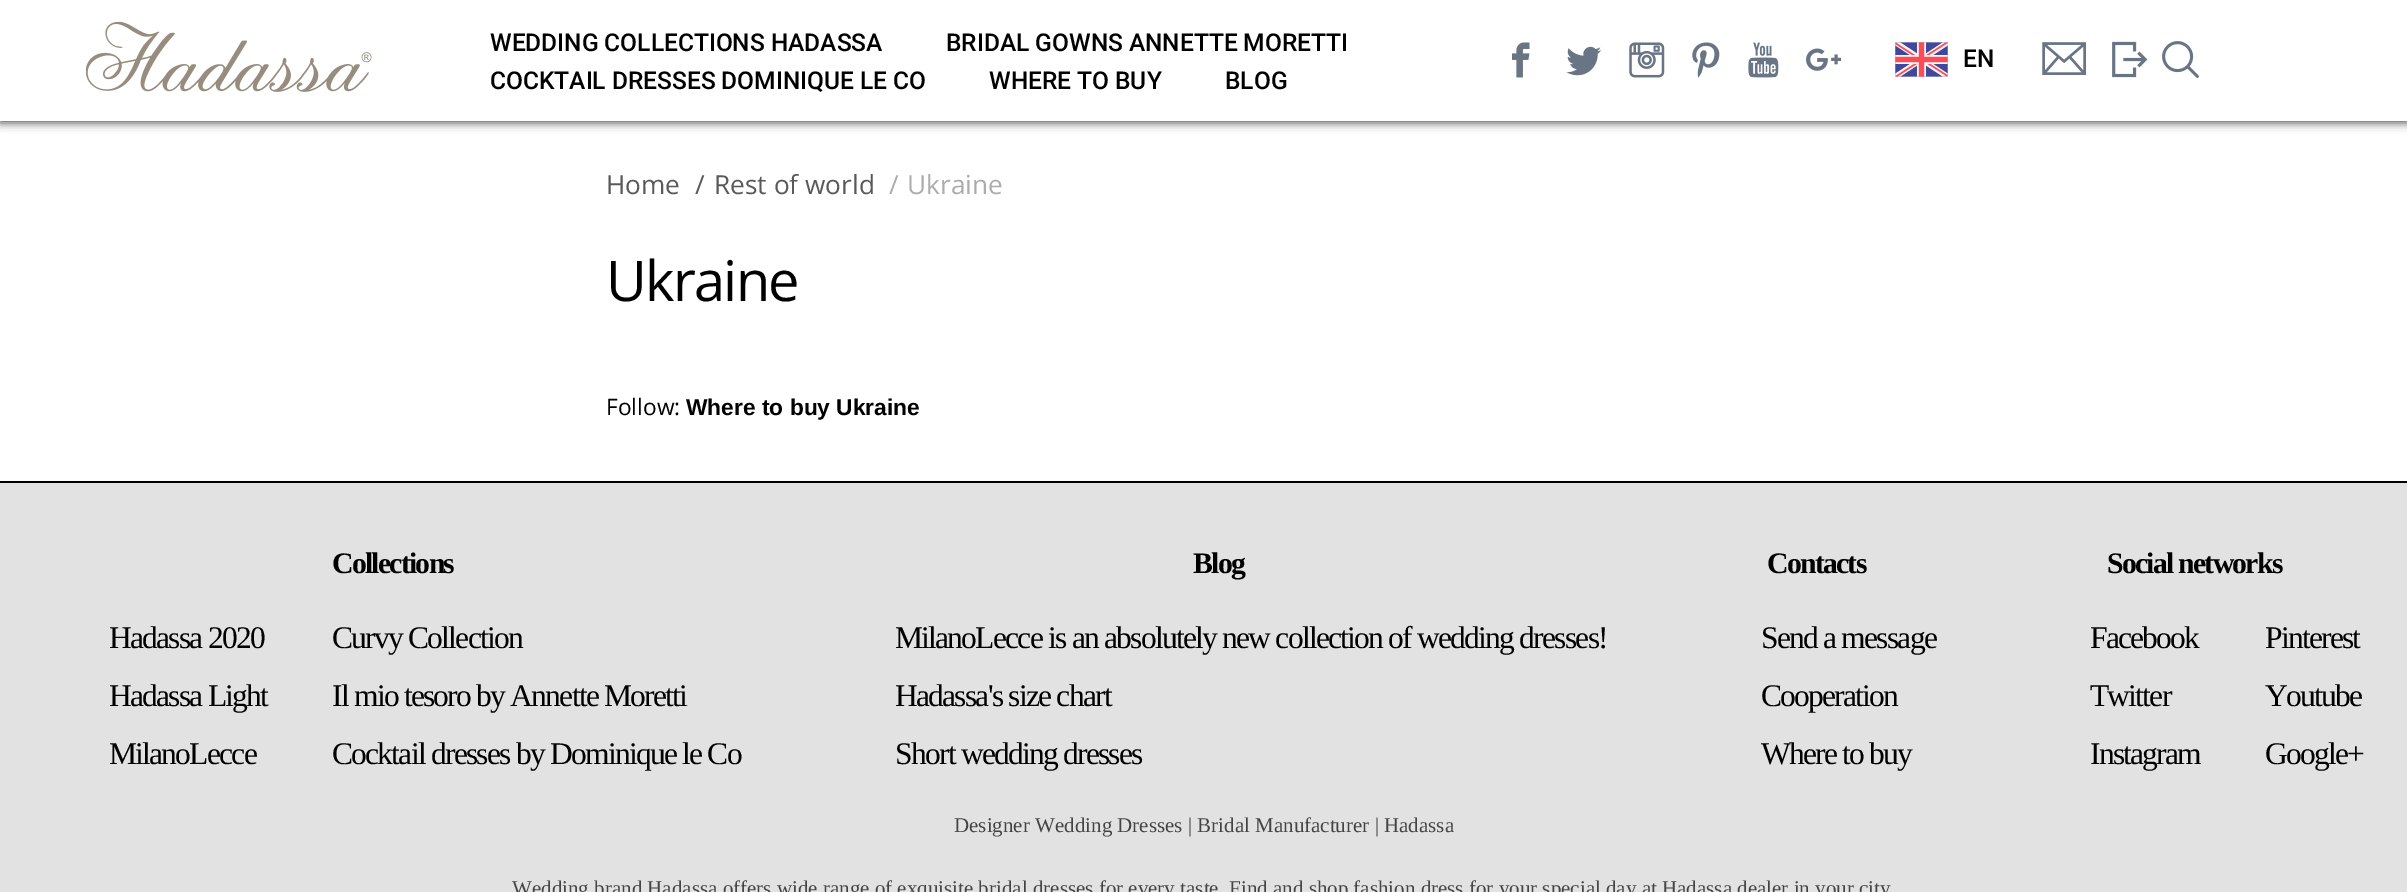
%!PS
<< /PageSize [2407 892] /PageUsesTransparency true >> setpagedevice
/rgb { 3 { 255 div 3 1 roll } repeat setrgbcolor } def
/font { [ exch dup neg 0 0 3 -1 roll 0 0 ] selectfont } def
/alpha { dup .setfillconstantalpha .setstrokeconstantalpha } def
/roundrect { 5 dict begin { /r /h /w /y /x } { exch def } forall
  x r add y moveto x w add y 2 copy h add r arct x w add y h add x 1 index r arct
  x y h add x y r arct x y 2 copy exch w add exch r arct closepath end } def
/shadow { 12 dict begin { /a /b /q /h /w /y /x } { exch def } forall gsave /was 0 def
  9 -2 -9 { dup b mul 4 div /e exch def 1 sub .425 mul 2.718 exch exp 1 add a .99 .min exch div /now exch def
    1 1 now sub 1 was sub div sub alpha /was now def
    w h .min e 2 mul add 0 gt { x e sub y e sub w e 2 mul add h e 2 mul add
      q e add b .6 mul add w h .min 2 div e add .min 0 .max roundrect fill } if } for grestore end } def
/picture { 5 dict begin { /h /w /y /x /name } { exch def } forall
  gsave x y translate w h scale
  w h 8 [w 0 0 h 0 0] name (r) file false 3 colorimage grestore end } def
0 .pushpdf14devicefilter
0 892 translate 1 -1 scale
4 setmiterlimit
255 255 255 rgb
0 0 2407 892 rectfill
85 85 85 rgb
0 2 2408 121 0 4.5 1 shadow
255 255 255 rgb
0 0 2407 121 rectfill
(img/1.rgb) 86 21 286 71 picture
(img/2.rgb) 1512 42 18 36 picture
(img/3.rgb) 1566 46 36 30 picture
(img/4.rgb) 1629 42 36 36 picture
(img/5.rgb) 1692 42 28 36 picture
(img/6.rgb) 1748 42 31 36 picture
(img/7.rgb) 1806 48 35 23 picture
(img/8.rgb) 1895 42 53 35 picture
(img/9.rgb) 2042 42 44 33 picture
(img/10.rgb) 2112 41 36 37 picture
(img/11.rgb) 2162 41 37 37 picture
226 226 226 rgb
0 483 2407 409 rectfill
0 0 0 rgb
0 481 2407 2 rectfill
/Roboto-Medium 24.5 font
[
  [(WEDDING COLLECTIONS HADASSA) 490 51]
  [(BRIDAL GOWNS ANNETTE MORETTI) 946 51]
  [(COCKTAIL DRESSES DOMINIQUE LE CO) 490 89]
  [(WHERE TO BUY) 989 89]
  [(BLOG) 1225 89]
  [(EN) 1963 67]
] { aload pop moveto show } forall
/OpenSans-Regular 26.25 font
89 89 89 rgb
[
  [(Home) 606 194]
  [(/) 695 194]
  [(Rest of world) 714 194]
] { aload pop moveto show } forall
172 172 172 rgb
889 194 moveto (/) show
907 194 moveto (Ukraine) show
/OpenSans-Regular 56 font
0 0 0 rgb
606 301 moveto -1.75 0 (Ukraine) ashow
/OpenSans-Regular 22.75 font
606 415 moveto (Follow:) show
/LiberationSans-Bold 22.75 font
686 415 moveto (Where to buy Ukraine) show
/LiberationSerif-Bold 29.75 font
332 573 moveto -1.75 0 (Collections) ashow
/LiberationSerif-Regular 31.5 font
109 648 moveto -1.75 0 (Hadassa 2020) ashow
109 706 moveto -1.75 0 (Hadassa Light) ashow
109 764 moveto -1.75 0 (MilanoLecce) ashow
332 648 moveto -1.75 0 (Curvy Collection) ashow
332 706 moveto -1.75 0 (Il mio tesoro by Annette Moretti) ashow
332 764 moveto -1.75 0 (Cocktail dresses by Dominique le Co) ashow
/LiberationSerif-Bold 29.75 font
1193 573 moveto -1.75 0 (Blog) ashow
/LiberationSerif-Regular 31.5 font
895 648 moveto -1.75 0 (MilanoLecce is an absolutely new collection of wedding dresses!) ashow
895 706 moveto -1.75 0 (Hadassa's size chart) ashow
895 764 moveto -1.75 0 (Short wedding dresses) ashow
/LiberationSerif-Bold 29.75 font
1767 573 moveto -1.75 0 (Contacts) ashow
/LiberationSerif-Regular 31.5 font
1761 648 moveto -1.75 0 (Send a message) ashow
1761 706 moveto -1.75 0 (Сooperation) ashow
1761 764 moveto -1.75 0 (Where to buy) ashow
/LiberationSerif-Bold 29.75 font
2107 573 moveto -1.75 0 (Social networks) ashow
/LiberationSerif-Regular 31.5 font
2090 648 moveto -1.75 0 (Facebook) ashow
2090 706 moveto -1.75 0 (Twitter) ashow
2090 764 moveto -1.75 0 (Instagram) ashow
2265 648 moveto -1.75 0 (Pinterest) ashow
2265 706 moveto -1.75 0 (Youtube) ashow
2265 764 moveto -1.75 0 (Google+) ashow
/LiberationSerif-Regular 21 font
68 68 68 rgb
954 832 moveto (Designer Wedding Dresses | Bridal Manufacturer | Hadassa) show
512 895 moveto (Wedding brand Hadassa offers wide range of exquisite bridal dresses for every taste. Find and shop fashion dress for your special day at Hadassa dealer in your city) show
.poppdf14devicefilter showpage
